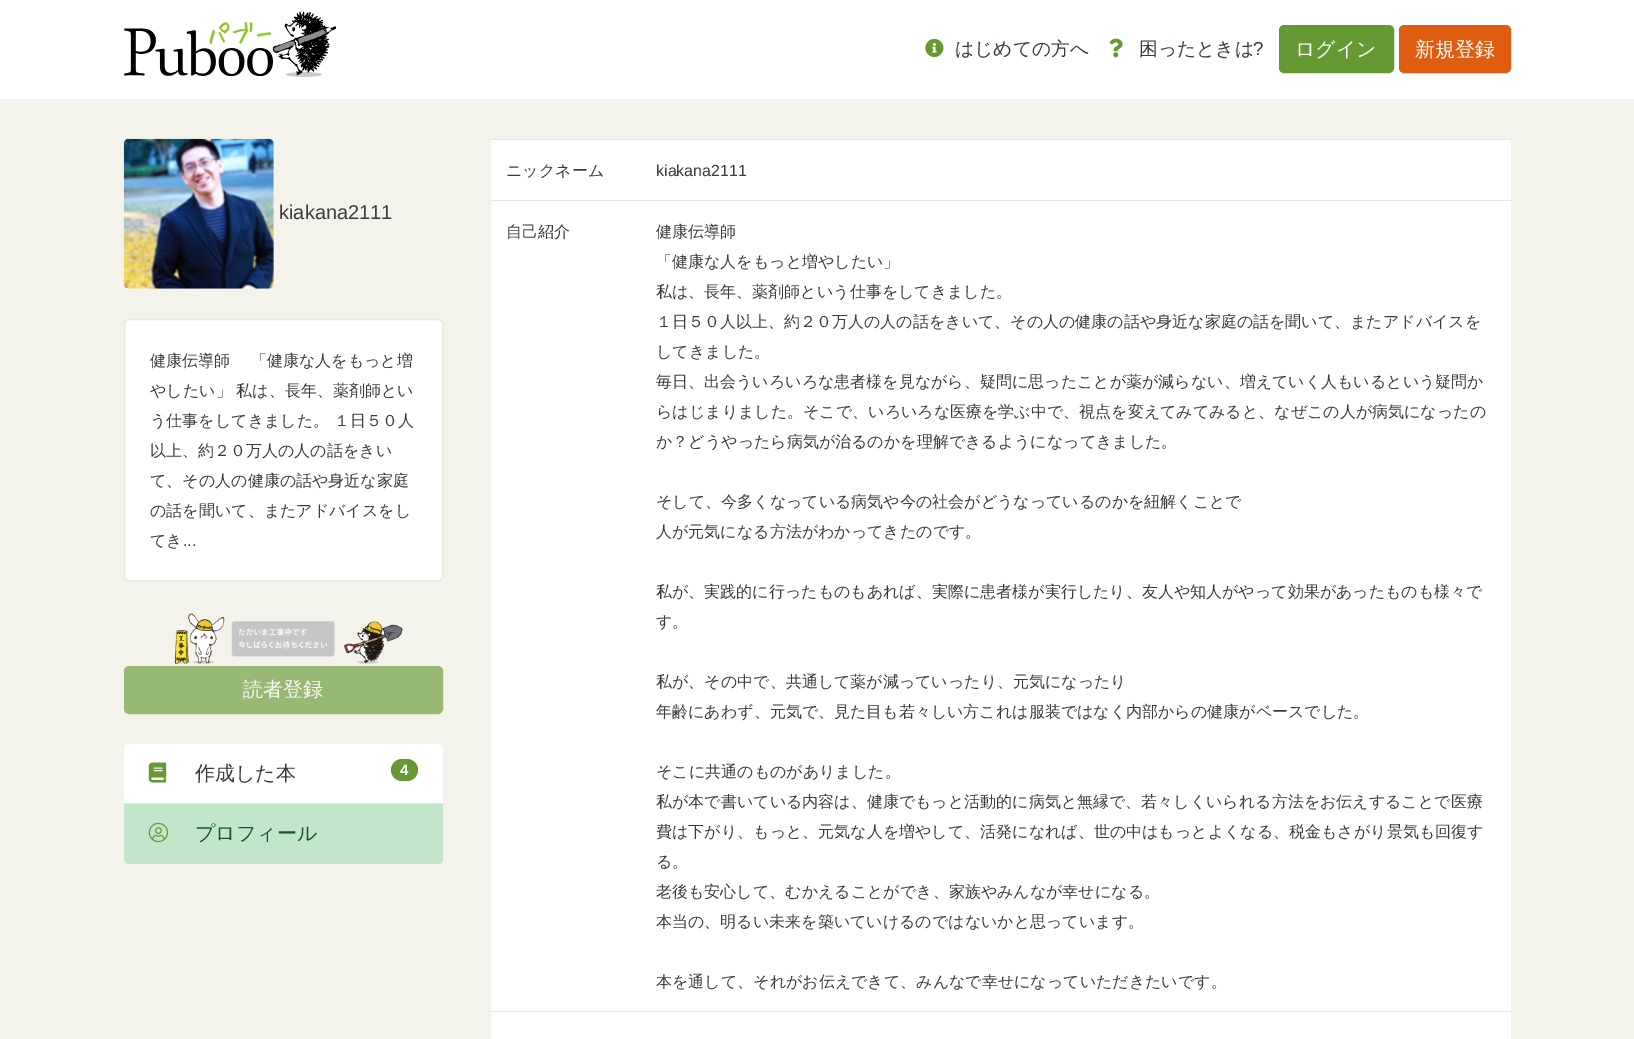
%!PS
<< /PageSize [1634 1039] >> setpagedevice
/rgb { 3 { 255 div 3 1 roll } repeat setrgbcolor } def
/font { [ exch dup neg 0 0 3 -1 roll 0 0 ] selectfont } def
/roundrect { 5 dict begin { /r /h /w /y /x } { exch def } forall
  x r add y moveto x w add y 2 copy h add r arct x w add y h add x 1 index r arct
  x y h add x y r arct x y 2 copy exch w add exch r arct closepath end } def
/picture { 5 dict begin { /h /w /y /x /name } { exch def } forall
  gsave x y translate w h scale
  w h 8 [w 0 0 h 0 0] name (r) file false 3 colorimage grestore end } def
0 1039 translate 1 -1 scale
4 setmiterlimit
244 243 235 rgb
0 0 1634 1039 rectfill
255 255 255 rgb
0 0 1634 99 rectfill
(img/1.rgb) 124 11 212 66 picture
(img/2.rgb) 925 38 19 20 picture
(img/3.rgb) 1109 38 14 20 picture
102 153 51 rgb
1279.5 25.5 114 47 4.5 roundrect gsave fill grestore
stroke
222 93 16 rgb
1399.5 25.5 111 47 4.5 roundrect gsave fill grestore
stroke
(img/4.rgb) 123 138 151 151 picture
255 255 255 rgb
124.5 319.5 318 261 4.5 roundrect gsave fill grestore
234 233 223 rgb
stroke
(img/5.rgb) 173 613 230 51 picture
152 185 115 rgb
124.5 666.5 318 47 4.5 roundrect gsave fill grestore
stroke
255 255 255 rgb
129 744 moveto 438 744 lineto 441 744 443 746 443 749 curveto 443 804 lineto 124 804 lineto 124 749 lineto 124 746 126 744 129 744 curveto closepath fill
(img/6.rgb) 148 762 19 21 picture
102 153 51 rgb
391 759 27 22 11 roundrect fill
195 230 203 rgb
124 803 moveto 443 803 lineto 443 859 lineto 443 862 441 864 438 864 curveto 129 864 lineto 126 864 124 862 124 859 curveto closepath fill
232 230 219 rgb
124 803 319 1 rectfill
(img/7.rgb) 148 822 21 21 picture
[
  [491 140 1020 60 255 255 255]
  [491 139 1022 1 234 233 223]
  [491 201 1020 810 255 255 255]
  [491 200 1022 1 234 233 223]
  [491 1011 1022 1 234 233 223]
  [491 1012 1020 27 255 255 255]
] { aload pop rgb rectfill } forall
/WenQuanYiZenHei-Medium 18.75 font
52 58 64 rgb
955 55 moveto (はじめての方へ) show
1139 55 moveto (困ったときは) show
/LiberationSans-Regular 18.75 font
1253 55 moveto (?) show
/WenQuanYiZenHei-Medium 20 font
255 255 255 rgb
1295 56 moveto (ログイン) show
1415 56 moveto (新規登録) show
/LiberationSans-Regular 20 font
60 60 60 rgb
279 219 moveto (kiakana2111) show
/WenQuanYiZenHei-Medium 16 font
[
  [(健康伝導師　 「健康な人をもっと増) 150 366]
  [(やしたい」 私は、長年、薬剤師とい) 150 396]
  [(う仕事をしてきました。 １日５０人) 150 426]
  [(以上、約２０万人の人の話をきい) 150 456]
  [(て、その人の健康の話や身近な家庭) 150 486]
  [(の話を聞いて、またアドバイスをし) 150 516]
  [(てき) 150 546]
] { aload pop moveto show } forall
/LiberationSans-Regular 16 font
183 546 moveto (...) show
/WenQuanYiZenHei-Medium 20 font
251 251 248 rgb
243 696 moveto (読者登録) show
52 58 64 rgb
195 780 moveto (作成した本) show
/LiberationSans-Bold 15 font
255 255 255 rgb
400 775 moveto (4) show
/WenQuanYiZenHei-Medium 20 font
21 87 36 rgb
195 840 moveto (プロフィール) show
/WenQuanYiZenHei-Medium 16 font
60 60 60 rgb
506 176 moveto (ニックネーム) show
/LiberationSans-Regular 16 font
656 176 moveto (kiakana2111) show
/WenQuanYiZenHei-Medium 16 font
[
  [(自己紹介) 506 237]
  [(健康伝導師) 656 237]
  [(「健康な人をもっと増やしたい」) 656 267]
  [(私は、長年、薬剤師という仕事をしてきました。) 656 297]
  [(１日５０人以上、約２０万人の人の話をきいて、その人の健康の話や身近な家庭の話を聞いて、またアドバイスを) 656 327]
  [(してきました。) 656 357]
  [(毎日、出会ういろいろな患者様を見ながら、疑問に思ったことが薬が減らない、増えていく人もいるという疑問か) 656 387]
  [(らはじまりました。そこで、いろいろな医療を学ぶ中で、視点を変えてみてみると、なぜこの人が病気になったの) 656 417]
  [(か？どうやったら病気が治るのかを理解できるようになってきました。) 656 447]
  [(そして、今多くなっている病気や今の社会がどうなっているのかを紐解くことで) 656 507]
  [(人が元気になる方法がわかってきたのです。) 656 537]
  [(私が、実践的に行ったものもあれば、実際に患者様が実行したり、友人や知人がやって効果があったものも様々で) 656 597]
  [(す。) 656 627]
  [(私が、その中で、共通して薬が減っていったり、元気になったり) 656 687]
  [(年齢にあわず、元気で、見た目も若々しい方これは服装ではなく内部からの健康がベースでした。) 656 717]
  [(そこに共通のものがありました。) 656 777]
  [(私が本で書いている内容は、健康でもっと活動的に病気と無縁で、若々しくいられる方法をお伝えすることで医療) 656 807]
  [(費は下がり、もっと、元気な人を増やして、活発になれば、世の中はもっとよくなる、税金もさがり景気も回復す) 656 837]
  [(る。) 656 867]
  [(老後も安心して、むかえることができ、家族やみんなが幸せになる。) 656 897]
  [(本当の、明るい未来を築いていけるのではないかと思っています。) 656 927]
  [(本を通して、それがお伝えできて、みんなで幸せになっていただきたいです。) 656 987]
] { aload pop moveto show } forall
showpage
